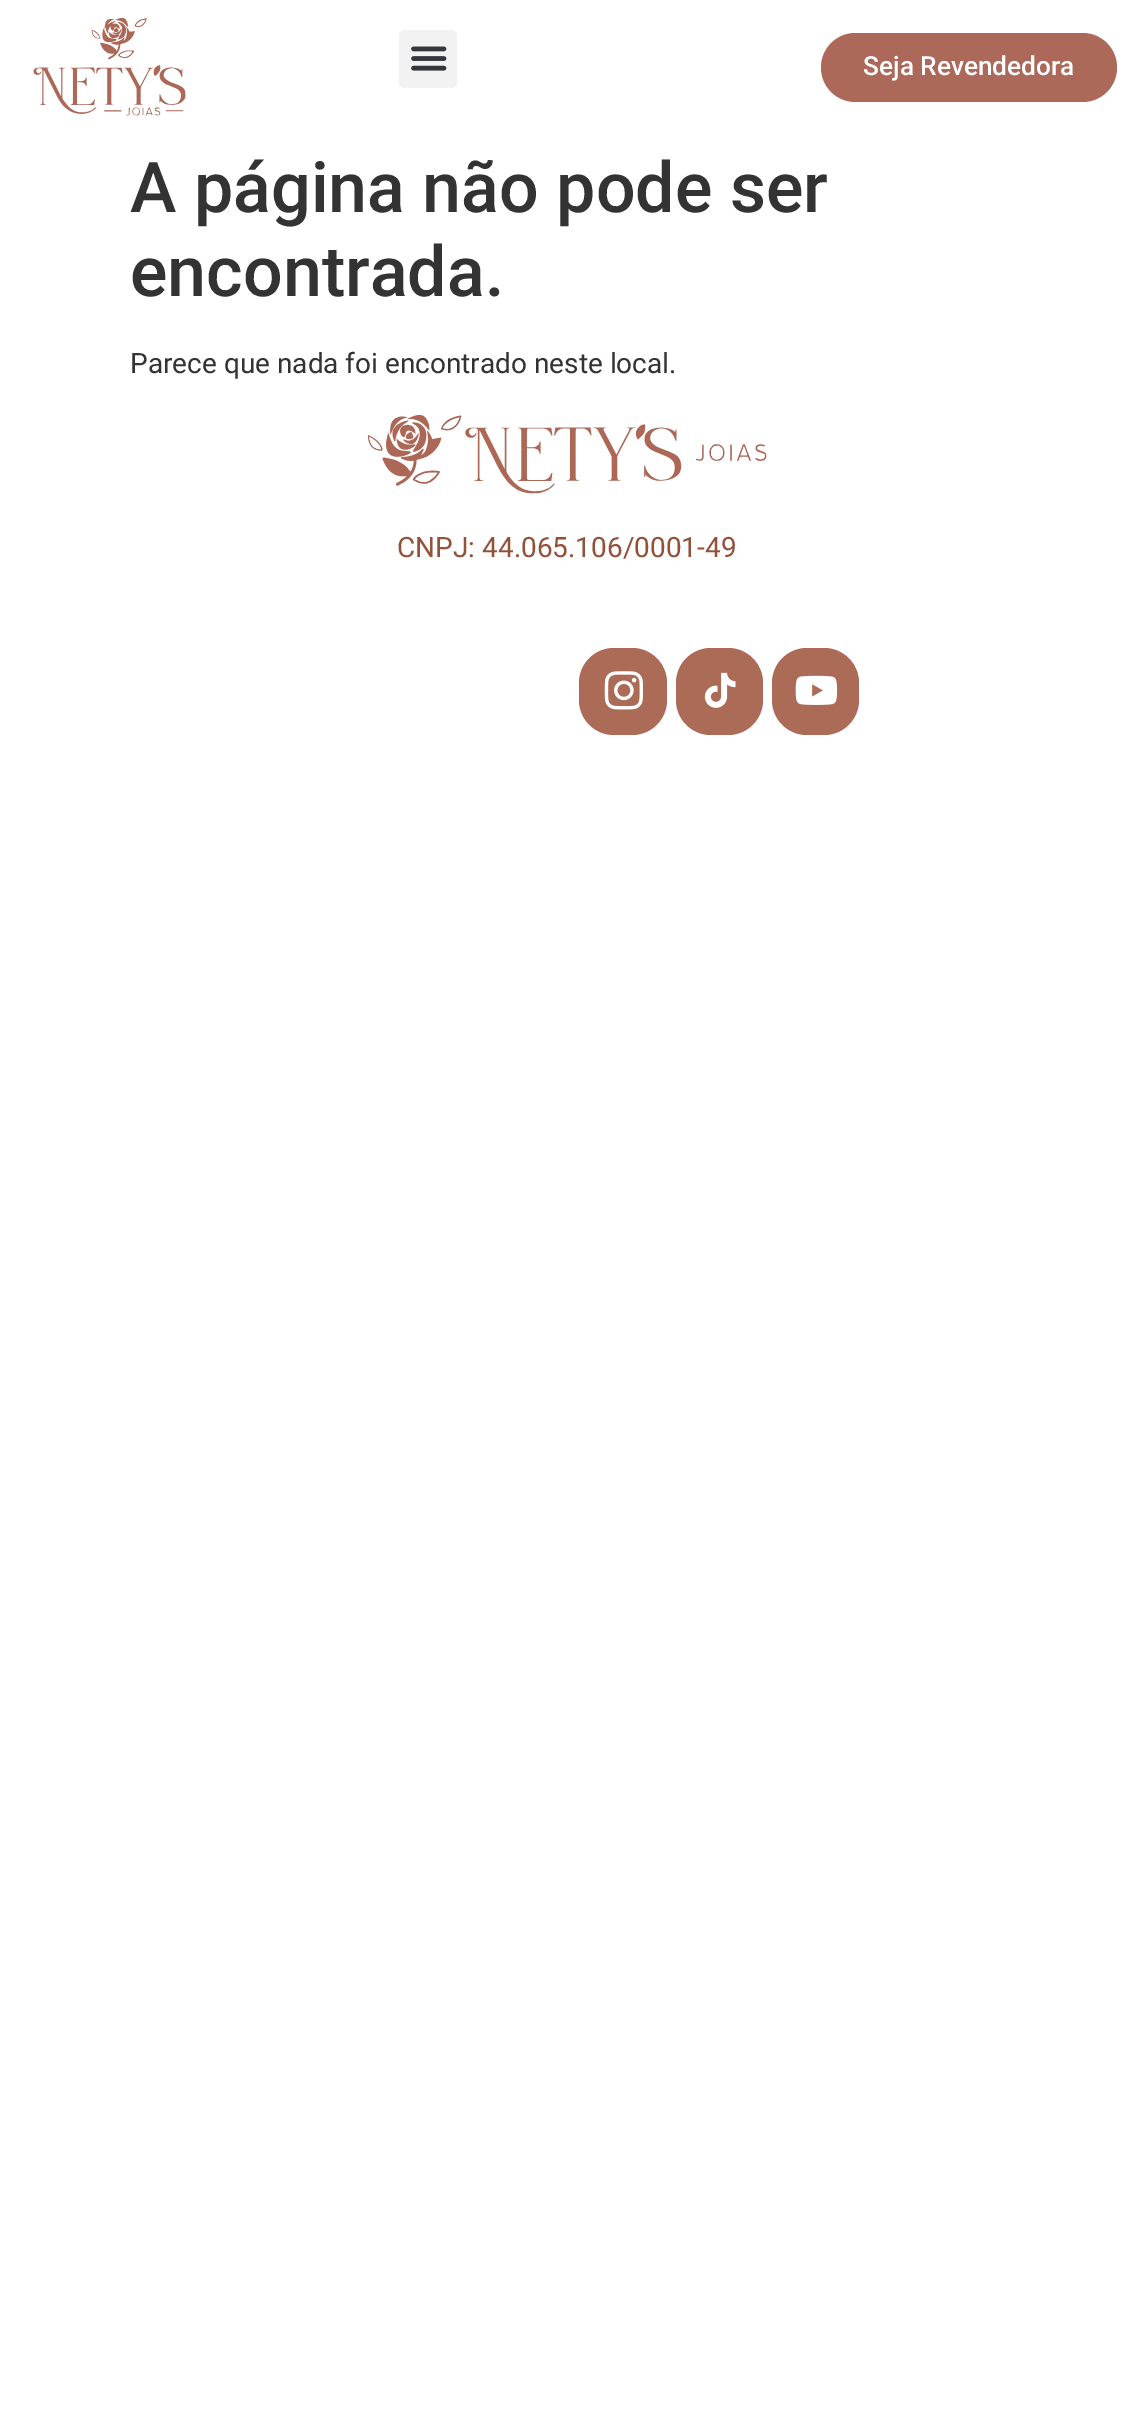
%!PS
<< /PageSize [1133 2432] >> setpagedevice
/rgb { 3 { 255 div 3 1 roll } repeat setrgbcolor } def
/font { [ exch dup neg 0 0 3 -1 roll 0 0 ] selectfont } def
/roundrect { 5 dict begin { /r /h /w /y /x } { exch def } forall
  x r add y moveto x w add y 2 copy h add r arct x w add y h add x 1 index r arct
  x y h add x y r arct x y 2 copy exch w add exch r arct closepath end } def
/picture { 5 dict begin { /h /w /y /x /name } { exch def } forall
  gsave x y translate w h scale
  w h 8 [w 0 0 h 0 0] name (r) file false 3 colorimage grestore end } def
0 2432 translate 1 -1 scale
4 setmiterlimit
255 255 255 rgb
0 0 1133 2432 rectfill
(img/1.rgb) 33 18 153 98 picture
242 242 242 rgb
399 30 58 58 5 roundrect fill
(img/2.rgb) 411 46 36 25 picture
172 105 90 rgb
821 33 296 69 34.5 roundrect fill
(img/3.rgb) 368 415 399 79 picture
172 107 87 rgb
579 648 88 87 35 roundrect fill
(img/4.rgb) 604 671 39 39 picture
676 648 87 87 35 roundrect fill
(img/5.rgb) 704 672 32 36 picture
772 648 87 87 35 roundrect fill
(img/6.rgb) 795 675 43 30 picture
/Roboto-Medium 26.25 font
255 255 255 rgb
863 75 moveto (Seja Revendedora) show
/Roboto-Medium 70 font
51 51 51 rgb
130 212 moveto (A página não pode ser) show
130 296 moveto (encontrada.) show
/Roboto-Regular 28 font
130 373 moveto (Parece que nada foi encontrado neste local.) show
148 80 57 rgb
397 557 moveto (CNPJ: 44.065.106/0001-49) show
showpage
